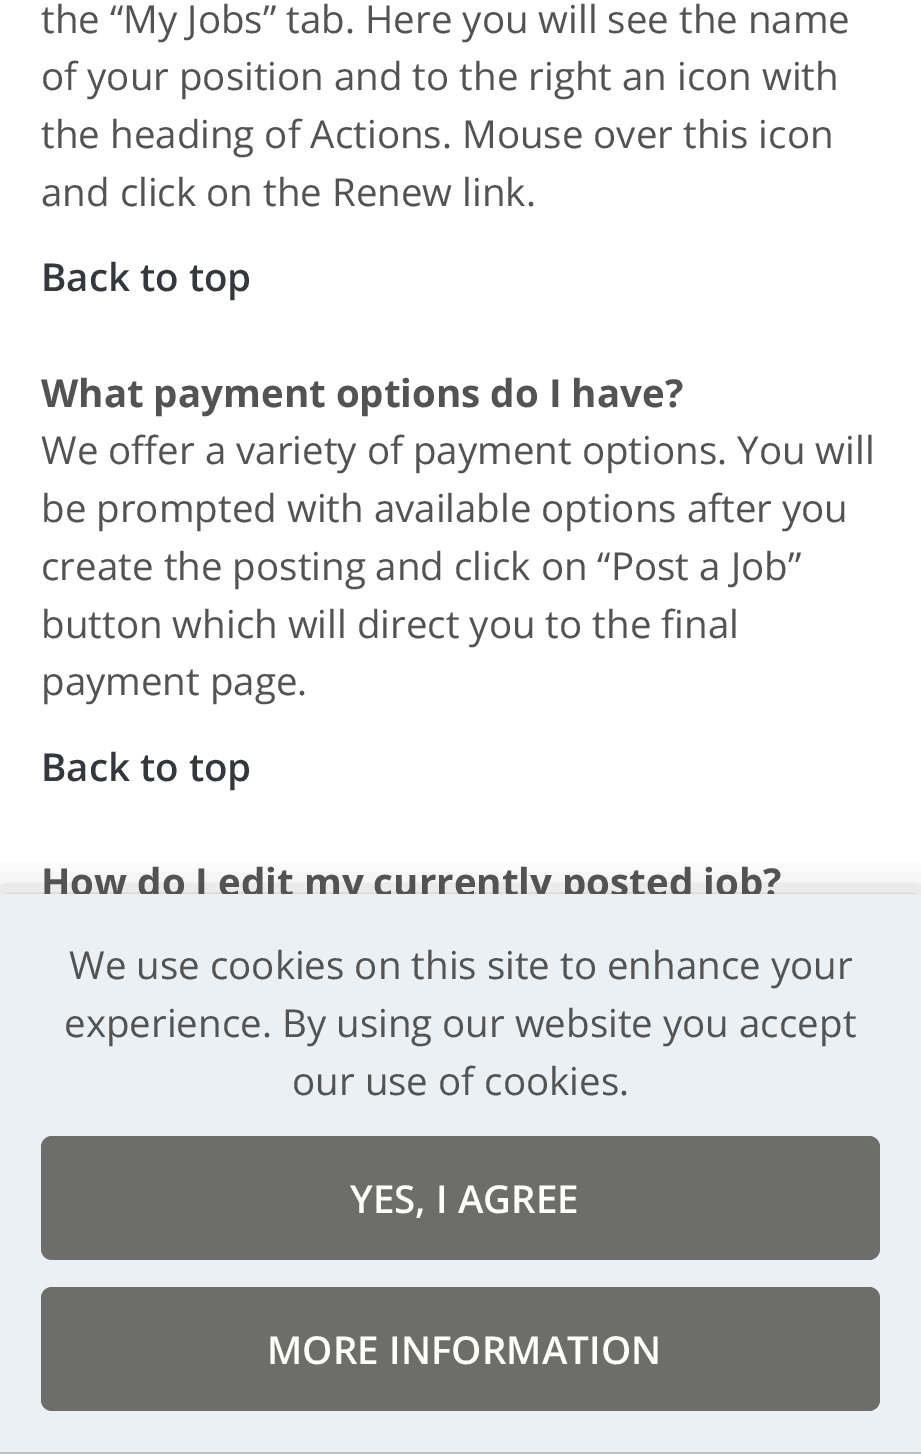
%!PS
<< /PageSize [921 1454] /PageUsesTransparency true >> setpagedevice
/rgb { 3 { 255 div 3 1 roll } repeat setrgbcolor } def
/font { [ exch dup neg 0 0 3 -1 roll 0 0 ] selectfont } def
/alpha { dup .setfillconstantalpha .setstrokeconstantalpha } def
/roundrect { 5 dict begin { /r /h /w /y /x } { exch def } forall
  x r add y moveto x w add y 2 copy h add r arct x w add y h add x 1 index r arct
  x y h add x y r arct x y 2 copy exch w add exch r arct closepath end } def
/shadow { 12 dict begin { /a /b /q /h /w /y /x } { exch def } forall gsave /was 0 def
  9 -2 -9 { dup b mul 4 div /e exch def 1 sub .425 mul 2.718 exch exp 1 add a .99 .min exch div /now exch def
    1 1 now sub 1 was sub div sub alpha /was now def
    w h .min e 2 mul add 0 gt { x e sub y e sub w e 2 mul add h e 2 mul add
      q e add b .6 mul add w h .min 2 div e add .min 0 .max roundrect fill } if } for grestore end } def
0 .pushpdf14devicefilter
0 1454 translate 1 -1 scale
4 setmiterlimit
255 255 255 rgb
0 0 921 1454 rectfill
0 0 0 rgb
0 908 921 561 0 20.5 0.5 shadow
187 192 195 rgb
0 1452 921 2 rectfill
/OpenSans-Regular 38.5 font
83 83 83 rgb
[
  [(the “My Jobs” tab. Here you will see the name) 41 33]
  [(of your position and to the right an icon with) 41 90]
  [(the heading of Actions. Mouse over this icon) 41 148]
  [(and click on the Renew link.) 41 206]
] { aload pop moveto show } forall
/OpenSans-SemiBold 38.5 font
52 55 60 rgb
41 291 moveto (Back to top) show
/OpenSans-Bold 38.5 font
83 83 83 rgb
41 407 moveto (What payment options do I have?) show
/OpenSans-Regular 38.5 font
[
  [(We offer a variety of payment options. You will) 41 464]
  [(be prompted with available options after you) 41 522]
  [(create the posting and click on “Post a Job”) 41 580]
  [(button which will direct you to the final) 41 638]
  [(payment page.) 41 695]
] { aload pop moveto show } forall
/OpenSans-SemiBold 38.5 font
52 55 60 rgb
41 781 moveto (Back to top) show
/OpenSans-Bold 38.5 font
83 83 83 rgb
41 896 moveto (How do I edit my currently posted job?) show
234 240 244 rgb
0 894 921 558 rectfill
/OpenSans-Regular 38.5 font
83 83 83 rgb
[
  [(We use cookies on this site to enhance your) 69 979]
  [(experience. By using our website you accept) 64 1037]
  [(our use of cookies.) 292 1095]
] { aload pop moveto show } forall
109 109 107 rgb
41 1136 839 124 11 roundrect fill
/OpenSans-SemiBold 38.5 font
255 255 249 rgb
350 1213 moveto (YES, I AGREE) show
109 109 107 rgb
41 1287 839 124 11 roundrect fill
255 255 249 rgb
267 1364 moveto (MORE INFORMATION) show
.poppdf14devicefilter showpage
